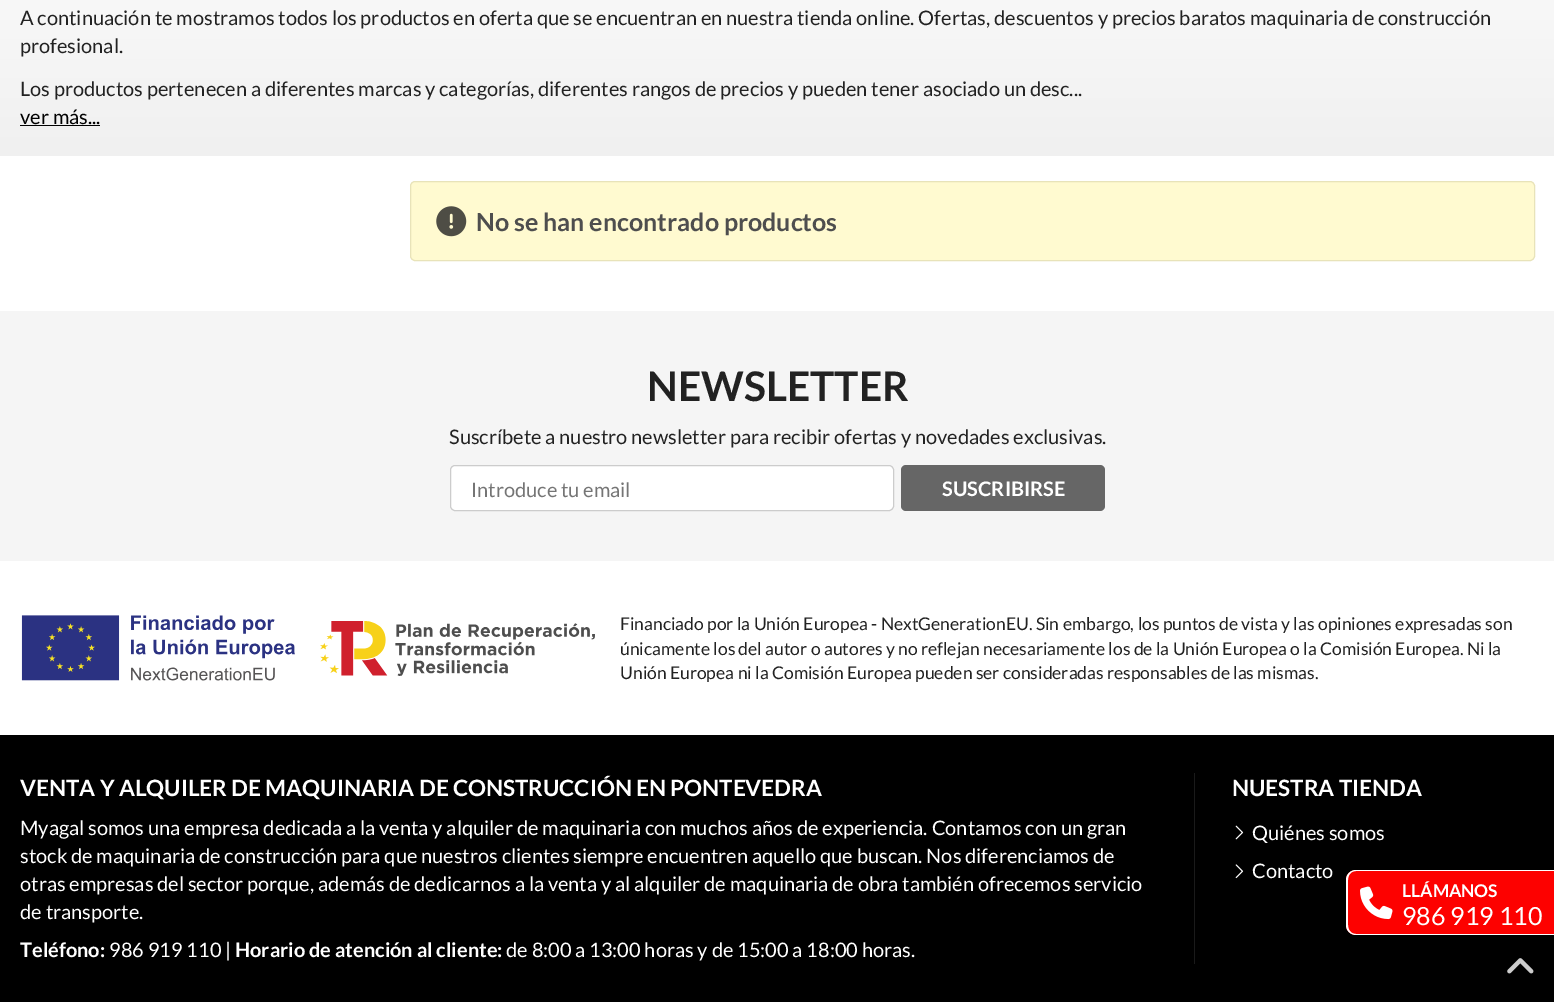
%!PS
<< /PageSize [1554 1002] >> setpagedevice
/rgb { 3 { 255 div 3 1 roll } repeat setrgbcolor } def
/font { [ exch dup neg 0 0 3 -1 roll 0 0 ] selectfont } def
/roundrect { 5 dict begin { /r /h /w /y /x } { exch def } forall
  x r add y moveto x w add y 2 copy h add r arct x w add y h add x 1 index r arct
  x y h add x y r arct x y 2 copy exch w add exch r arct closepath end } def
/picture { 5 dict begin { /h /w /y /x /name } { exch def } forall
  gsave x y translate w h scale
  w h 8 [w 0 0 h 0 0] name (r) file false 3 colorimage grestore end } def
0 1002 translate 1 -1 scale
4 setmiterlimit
255 255 255 rgb
0 0 1554 1002 rectfill
gsave 0 0 moveto 1554 0 lineto 1554 156 lineto 0 156 lineto closepath clip newpath
<< /ShadingType 2 /ColorSpace /DeviceRGB /Coords [778 -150 778 156] /Extend [true true] /Function << /FunctionType 2 /Domain [0 1] /C0 [1 1 1] /C1 [0.941 0.941 0.941] /N 1 >> >> shfill grestore
0 0 0 rgb
20 125 80 1 rectfill
255 250 208 rgb
410.5 181.5 1124 79 4.5 roundrect gsave fill grestore
232 227 185 rgb
stroke
(img/1.rgb) 436 206 31 31 picture
245 245 245 rgb
0 311 1554 250 rectfill
255 255 255 rgb
450.5 465.5 443 45 4.5 roundrect gsave fill grestore
204 204 204 rgb
stroke
102 102 102 rgb
901 465 204 46 5 roundrect fill
(img/2.rgb) 21 615 274 66 picture
(img/3.rgb) 320 621 275 55 picture
0 0 0 rgb
0 735 1554 267 rectfill
26 26 26 rgb
1194 773 1 191 rectfill
(img/4.rgb) 1235 825 9 15 picture
(img/5.rgb) 1235 864 9 15 picture
253 1 0 rgb
1356 870 moveto 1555 870 lineto 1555 935 lineto 1356 935 lineto 1350.5 935 1346 930.5 1346 925 curveto 1346 880 lineto 1346 874.5 1350.5 870 1356 870 curveto closepath fill
255 255 255 rgb
1356 870 moveto 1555 870 lineto 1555 935 lineto 1356 935 lineto 1351 935 1346 931 1346 925 curveto 1346 880 lineto 1346 874 1351 870 1356 870 curveto closepath 1356 871 moveto 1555 871 lineto 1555 934 lineto 1356 934 lineto 1351 934 1348 930 1348 925 curveto 1348 880 lineto 1348 875 1351 871 1356 871 curveto closepath eofill
(img/6.rgb) 1360 886 33 34 picture
(img/7.rgb) 1507 958 27 16 picture
/Lato-Regular 20 font
34 34 34 rgb
[
  [(A continuación te mostramos todos los productos en oferta que se encuentran en nuestra tienda online. Ofertas, descuentos y precios baratos maquinaria de construcción) 20 25]
  [(profesional.) 20 53]
  [(Los productos pertenecen a diferentes marcas y categorías, diferentes rangos de precios y pueden tener asociado un desc...) 20 96]
] { aload pop moveto show } forall
0 0 0 rgb
20 124 moveto (ver más...) show
/Lato-Bold 25 font
78 78 78 rgb
476 231 moveto (No se han encontrado productos) show
/Lato-Bold 40.75 font
34 34 34 rgb
647 401 moveto (NEWSLETTER) show
/Lato-Regular 20 font
449 444 moveto (Suscríbete a nuestro newsletter para recibir ofertas y novedades exclusivas.) show
117 117 117 rgb
471 497 moveto (Introduce tu email) show
/Lato-Bold 20 font
255 255 255 rgb
942 496 moveto (SUSCRIBIRSE) show
/Lato-Regular 17.5 font
34 34 34 rgb
[
  [(Financiado por la Unión Europea - NextGenerationEU. Sin embargo, los puntos de vista y las opiniones expresadas son) 620 630]
  [(únicamente los del autor o autores y no reflejan necesariamente los de la Unión Europea o la Comisión Europea. Ni la) 620 655]
  [(Unión Europea ni la Comisión Europea pueden ser consideradas responsables de las mismas.) 620 679]
] { aload pop moveto show } forall
/Lato-Bold 22.5 font
255 255 255 rgb
20 796 moveto (VENTA Y ALQUILER DE MAQUINARIA DE CONSTRUCCIÓN EN PONTEVEDRA) show
/Lato-Regular 20 font
[
  [(Myagal somos una empresa dedicada a la venta y alquiler de maquinaria con muchos años de experiencia. Contamos con un gran) 20 835]
  [(stock de maquinaria de construcción para que nuestros clientes siempre encuentren aquello que buscan. Nos diferenciamos de) 20 863]
  [(otras empresas del sector porque, además de dedicarnos a la venta y al alquiler de maquinaria de obra también ofrecemos servicio) 20 891]
  [(de transporte.) 20 919]
] { aload pop moveto show } forall
/Lato-Bold 20 font
20 957 moveto (Teléfono:) show
/Lato-Regular 20 font
109 957 moveto (986 919 110 |) show
/Lato-Bold 20 font
235 957 moveto (Horario de atención al cliente:) show
/Lato-Regular 20 font
506 957 moveto (de 8:00 a 13:00 horas y de 15:00 a 18:00 horas.) show
/Lato-Bold 22.5 font
1232 796 moveto (NUESTRA TIENDA) show
/Lato-Regular 20 font
1252 840 moveto (Quiénes somos) show
1252 878 moveto (Contacto) show
/Lato-Bold 17.5 font
1402 897 moveto (LLÁMANOS) show
/Lato-Regular 25 font
1402 925 moveto (986 919 110) show
showpage
